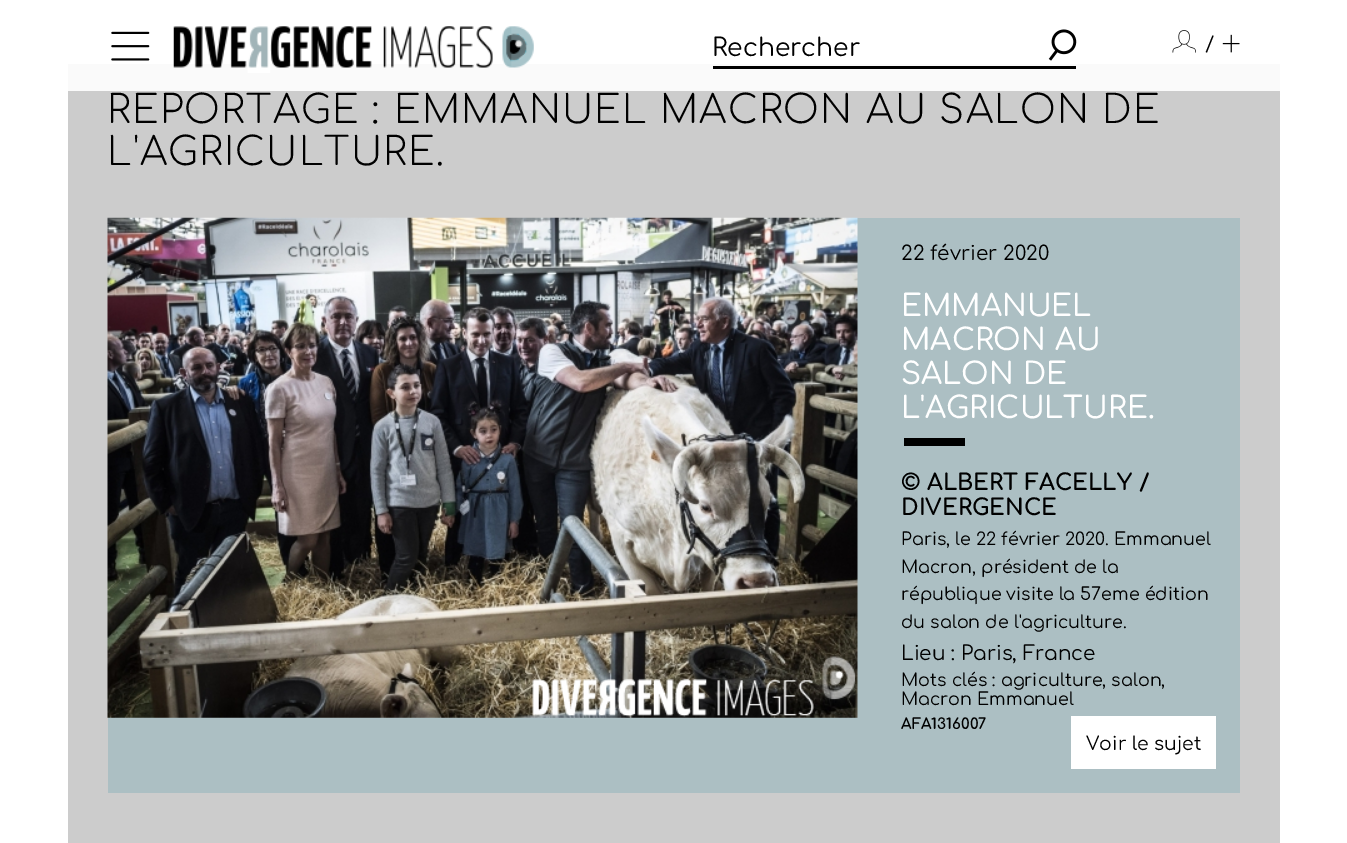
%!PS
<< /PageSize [1347 843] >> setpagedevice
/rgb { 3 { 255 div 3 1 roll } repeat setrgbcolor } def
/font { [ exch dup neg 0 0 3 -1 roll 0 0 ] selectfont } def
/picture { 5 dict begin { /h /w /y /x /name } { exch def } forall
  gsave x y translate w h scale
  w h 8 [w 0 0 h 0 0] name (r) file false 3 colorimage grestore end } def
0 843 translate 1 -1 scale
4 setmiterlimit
255 255 255 rgb
0 0 1347 843 rectfill
204 204 204 rgb
68 91 1212 752 rectfill
250 250 250 rgb
68 64 1212 27 rectfill
(img/1.rgb) 111 31 39 30 picture
(img/2.rgb) 173 26 361 47 picture
0 0 0 rgb
713 66 363 3 rectfill
(img/3.rgb) 1048 29 29 32 picture
(img/4.rgb) 1172 30 24 23 picture
(img/5.rgb) 1222 34 18 19 picture
172 191 195 rgb
108 218 1132 575 rectfill
(img/6.rgb) 107 217 751 501 picture
0 0 0 rgb
904 438 61 8 rectfill
255 255 255 rgb
1071 716 145 53 rectfill
/Comfortaa-Regular 25 font
0 0 0 rgb
712 56 moveto (Rechercher) show
/Comfortaa-Regular 20 font
1205 51 moveto 1.25 0 (/) ashow
/Comfortaa-Light 38.75 font
107 123 moveto 1.25 0 (REPORTAGE : EMMANUEL MACRON AU SALON DE) ashow
107 165 moveto 1.25 0 (L'AGRICULTURE.) ashow
/Comfortaa-Regular 20 font
901 260 moveto (22 février 2020) show
/Comfortaa-Medium 30 font
255 255 255 rgb
[
  [(EMMANUEL) 901 316]
  [(MACRON AU) 901 350]
  [(SALON DE) 901 384]
  [(L'AGRICULTURE.) 901 418]
] { aload pop moveto show } forall
/Comfortaa-Bold 22.5 font
0 0 0 rgb
901 490 moveto (© ALBERT FACELLY /) show
901 515 moveto (DIVERGENCE) show
/Comfortaa-Regular 17.5 font
[
  [(Paris, le 22 février 2020. Emmanuel) 901 545]
  [(Macron, président de la) 901 573]
  [(république visite la 57eme édition) 901 600]
  [(du salon de l'agriculture.) 901 628]
] { aload pop moveto show } forall
/Comfortaa-Regular 20 font
901 660 moveto (Lieu : Paris, France) show
/Comfortaa-Regular 17.5 font
901 686 moveto (Mots clés : agriculture, salon,) show
901 705 moveto (Macron Emmanuel) show
/Comfortaa-Bold 15 font
901 729 moveto (AFA1316007) show
/Comfortaa-Regular 18.75 font
1086 750 moveto (Voir le sujet) show
showpage
